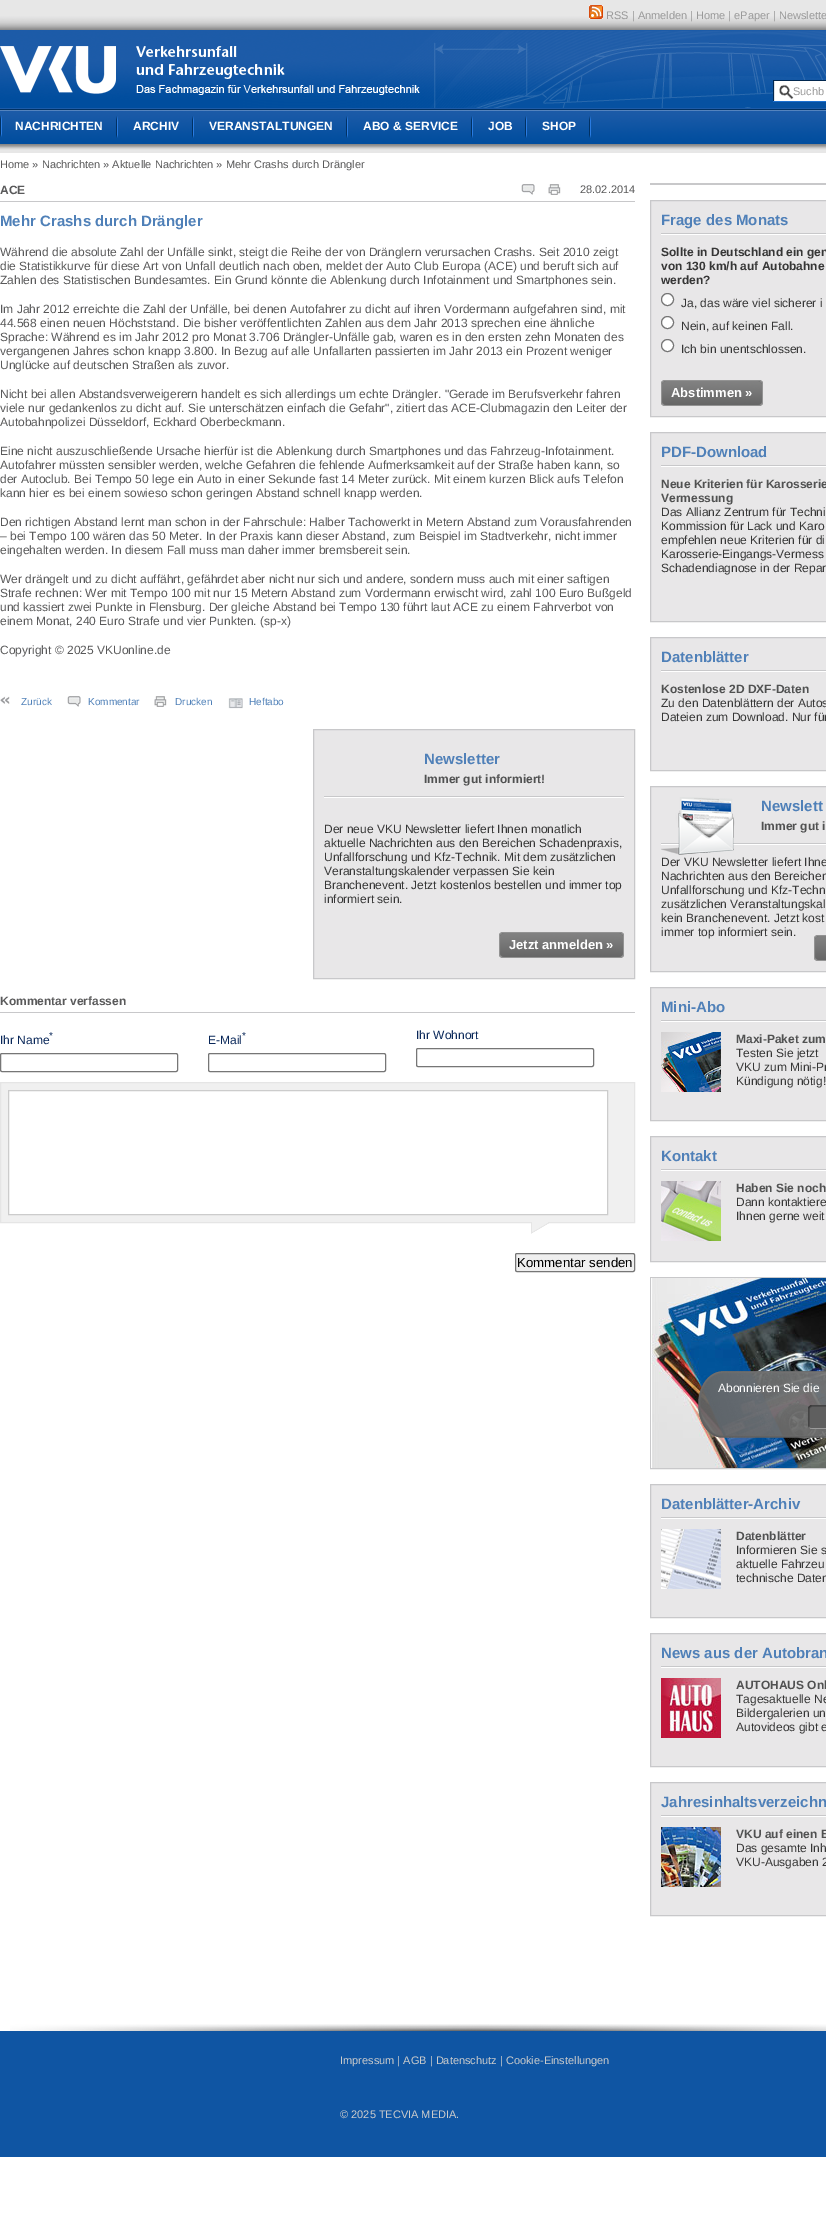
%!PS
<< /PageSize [826 2240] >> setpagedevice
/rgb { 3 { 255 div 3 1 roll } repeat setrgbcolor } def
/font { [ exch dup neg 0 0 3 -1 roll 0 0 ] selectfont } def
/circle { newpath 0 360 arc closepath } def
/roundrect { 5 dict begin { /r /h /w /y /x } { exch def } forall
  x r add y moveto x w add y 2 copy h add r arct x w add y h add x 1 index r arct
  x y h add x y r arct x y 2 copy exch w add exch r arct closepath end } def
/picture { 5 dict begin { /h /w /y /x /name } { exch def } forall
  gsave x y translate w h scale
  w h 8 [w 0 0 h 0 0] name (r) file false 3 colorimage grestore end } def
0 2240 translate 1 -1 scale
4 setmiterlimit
255 255 255 rgb
0 0 826 2240 rectfill
(img/1.rgb) 0 0 826 153 picture
(img/2.rgb) 589 5 14 14 picture
(img/3.rgb) 0 31 826 77 picture
(img/4.rgb) 773 80 53 22 picture
(img/5.rgb) 0 115 2 22 picture
(img/5.rgb) 116 116 2 22 picture
(img/5.rgb) 192 116 2 22 picture
(img/5.rgb) 346 116 2 22 picture
(img/5.rgb) 471 116 2 22 picture
(img/5.rgb) 525 116 2 22 picture
(img/5.rgb) 589 116 2 22 picture
200 200 202 rgb
0 201 635 1 rectfill
(img/6.rgb) 521 184 14 11 picture
(img/7.rgb) 548 184 13 11 picture
(img/8.rgb) 0 696 10 8 picture
(img/6.rgb) 67 696 14 11 picture
(img/7.rgb) 154 696 13 11 picture
(img/9.rgb) 228 698 15 11 picture
232 231 232 rgb
313.5 729.5 moveto 634.5 729.5 lineto 634.5 978.5 lineto 313.5 978.5 lineto closepath gsave fill grestore
200 200 202 rgb
stroke
255 255 255 rgb
324 797 300 1 rectfill
200 200 202 rgb
324 796 300 1 rectfill
(img/10.rgb) 499 932 115 26 picture
(img/11.rgb) 614 932 10 26 picture
0 1012 635 1 rectfill
118 118 118 rgb
0.5 1053.5 177 18 1.5 roundrect stroke
208.5 1053.5 177 18 1.5 roundrect stroke
416.5 1048.5 177 18 1.5 roundrect stroke
240 240 240 rgb
0.5 1082.5 moveto 634.5 1082.5 lineto 634.5 1222.5 lineto 0.5 1222.5 lineto closepath gsave fill grestore
229 229 229 rgb
stroke
255 255 255 rgb
8.5 1090.5 moveto 607.5 1090.5 lineto 607.5 1214.5 lineto 8.5 1214.5 lineto closepath gsave fill grestore
204 204 204 rgb
stroke
(img/12.rgb) 531 1222 18 12 picture
239 239 239 rgb
515.5 1253.5 119 18 1.5 roundrect gsave fill grestore
118 118 118 rgb
stroke
200 200 202 rgb
650 183 176 2 rectfill
232 231 232 rgb
650.5 200.5 moveto 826.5 200.5 lineto 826.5 416.5 lineto 650.5 416.5 lineto closepath gsave fill grestore
200 200 202 rgb
stroke
255 255 255 rgb
661 234 165 1 rectfill
200 200 202 rgb
661 233 165 1 rectfill
255 255 255 rgb
667.5 299.5 6 circle gsave fill grestore
118 118 118 rgb
stroke
255 255 255 rgb
667.5 322.5 6 circle gsave fill grestore
118 118 118 rgb
stroke
255 255 255 rgb
667.5 345.5 6 circle gsave fill grestore
118 118 118 rgb
stroke
(img/13.rgb) 661 380 92 26 picture
(img/11.rgb) 753 380 10 26 picture
232 231 232 rgb
650.5 432.5 moveto 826.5 432.5 lineto 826.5 621.5 lineto 650.5 621.5 lineto closepath gsave fill grestore
200 200 202 rgb
stroke
255 255 255 rgb
661 466 165 1 rectfill
200 200 202 rgb
661 465 165 1 rectfill
232 231 232 rgb
650.5 637.5 moveto 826.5 637.5 lineto 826.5 770.5 lineto 650.5 770.5 lineto closepath gsave fill grestore
200 200 202 rgb
stroke
255 255 255 rgb
661 671 165 1 rectfill
200 200 202 rgb
661 670 165 1 rectfill
232 231 232 rgb
650.5 786.5 moveto 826.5 786.5 lineto 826.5 971.5 lineto 650.5 971.5 lineto closepath gsave fill grestore
200 200 202 rgb
stroke
255 255 255 rgb
661 844 165 1 rectfill
200 200 202 rgb
661 843 165 1 rectfill
(img/14.rgb) 661 797 74 58 picture
(img/15.rgb) 814 935 12 26 picture
232 231 232 rgb
650.5 987.5 moveto 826.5 987.5 lineto 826.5 1120.5 lineto 650.5 1120.5 lineto closepath gsave fill grestore
200 200 202 rgb
stroke
255 255 255 rgb
661 1021 165 1 rectfill
200 200 202 rgb
661 1020 165 1 rectfill
(img/16.rgb) 661 1032 60 60 picture
232 231 232 rgb
650.5 1136.5 moveto 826.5 1136.5 lineto 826.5 1261.5 lineto 650.5 1261.5 lineto closepath gsave fill grestore
200 200 202 rgb
stroke
255 255 255 rgb
661 1170 165 1 rectfill
200 200 202 rgb
661 1169 165 1 rectfill
(img/17.rgb) 661 1181 60 60 picture
650.5 1277.5 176 191 rectstroke
(img/18.rgb) 651 1278 175 190 picture
(img/19.rgb) 698 1371 128 67 picture
232 231 232 rgb
650.5 1484.5 moveto 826.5 1484.5 lineto 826.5 1617.5 lineto 650.5 1617.5 lineto closepath gsave fill grestore
200 200 202 rgb
stroke
255 255 255 rgb
661 1518 165 1 rectfill
200 200 202 rgb
661 1517 165 1 rectfill
(img/20.rgb) 661 1529 60 60 picture
232 231 232 rgb
650.5 1633.5 moveto 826.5 1633.5 lineto 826.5 1766.5 lineto 650.5 1766.5 lineto closepath gsave fill grestore
200 200 202 rgb
stroke
255 255 255 rgb
661 1667 165 1 rectfill
200 200 202 rgb
661 1666 165 1 rectfill
(img/21.rgb) 661 1678 60 60 picture
232 231 232 rgb
650.5 1782.5 moveto 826.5 1782.5 lineto 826.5 1915.5 lineto 650.5 1915.5 lineto closepath gsave fill grestore
200 200 202 rgb
stroke
255 255 255 rgb
661 1816 165 1 rectfill
200 200 202 rgb
661 1815 165 1 rectfill
(img/22.rgb) 661 1827 60 60 picture
15 85 163 rgb
0 2031 826 126 rectfill
(img/23.rgb) 10 2024 816 7 picture
/LiberationSans-Regular 11 font
153 153 153 rgb
606 19 moveto (RSS | Anmelden | Home | ePaper | Newslette) show
793 95 moveto (Suchb) show
/LiberationSans-Bold 12 font
255 255 255 rgb
[
  [(NACHRICHTEN) 15 130]
  [(ARCHIV) 133 130]
  [(VERANSTALTUNGEN) 209 130]
  [(ABO & SERVICE) 363 130]
  [(JOB) 488 130]
  [(SHOP) 542 130]
] { aload pop moveto show } forall
/LiberationSans-Regular 11 font
89 89 90 rgb
0 168 moveto (Home » Nachrichten » Aktuelle Nachrichten » Mehr Crashs durch Drängler) show
/LiberationSans-Bold 12 font
0 194 moveto (ACE) show
/LiberationSans-Regular 11 font
580 193 moveto (28.02.2014) show
/LiberationSans-Bold 15 font
79 128 184 rgb
0 226 moveto (Mehr Crashs durch Drängler) show
/LiberationSans-Regular 12 font
89 89 90 rgb
[
  [(Während die absolute Zahl der Unfälle sinkt, steigt die Reihe der von Dränglern verursachen Crashs. Seit 2010 zeigt) 0 256]
  [(die Statistikkurve für diese Art von Unfall deutlich nach oben, meldet der Auto Club Europa \(ACE\) und beruft sich auf) 0 270]
  [(Zahlen des Statistischen Bundesamtes. Ein Grund könnte die Ablenkung durch Infotainment und Smartphones sein.) 0 284]
  [(Im Jahr 2012 erreichte die Zahl der Unfälle, bei denen Autofahrer zu dicht auf ihren Vordermann aufgefahren sind, mit) 0 313]
  [(44.568 einen neuen Höchststand. Die bisher veröffentlichten Zahlen aus dem Jahr 2013 sprechen eine ähnliche) 0 327]
  [(Sprache: Während es im Jahr 2012 pro Monat 3.706 Drängler-Unfälle gab, waren es in den ersten zehn Monaten des) 0 341]
  [(vergangenen Jahres schon knapp 3.800. In Bezug auf alle Unfallarten passierten im Jahr 2013 ein Prozent weniger) 0 355]
  [(Unglücke auf deutschen Straßen als zuvor.) 0 369]
  [(Nicht bei allen Abstandsverweigerern handelt es sich allerdings um echte Drängler. "Gerade im Berufsverkehr fahren) 0 398]
  [(viele nur gedankenlos zu dicht auf. Sie unterschätzen einfach die Gefahr", zitiert das ACE-Clubmagazin den Leiter der) 0 412]
  [(Autobahnpolizei Düsseldorf, Eckhard Oberbeckmann.) 0 426]
  [(Eine nicht auszuschließende Ursache hierfür ist die Ablenkung durch Smartphones und das Fahrzeug-Infotainment.) 0 455]
  [(Autofahrer müssten sensibler werden, welche Gefahren die fehlende Aufmerksamkeit auf der Straße haben kann, so) 0 469]
  [(der Autoclub. Bei Tempo 50 lege ein Auto in einer Sekunde fast 14 Meter zurück. Mit einem kurzen Blick aufs Telefon) 0 483]
  [(kann hier es bei einem sowieso schon geringen Abstand schnell knapp werden.) 0 497]
  [(Den richtigen Abstand lernt man schon in der Fahrschule: Halber Tachowerkt in Metern Abstand zum Vorausfahrenden) 0 526]
  [(– bei Tempo 100 wären das 50 Meter. In der Praxis kann dieser Abstand, zum Beispiel im Stadtverkehr, nicht immer) 0 540]
  [(eingehalten werden. In diesem Fall muss man daher immer bremsbereit sein.) 0 554]
  [(Wer drängelt und zu dicht auffährt, gefährdet aber nicht nur sich und andere, sondern muss auch mit einer saftigen) 0 583]
  [(Strafe rechnen: Wer mit Tempo 100 mit nur 15 Metern Abstand zum Vordermann erwischt wird, zahl 100 Euro Bußgeld) 0 597]
  [(und kassiert zwei Punkte in Flensburg. Der gleiche Abstand bei Tempo 130 führt laut ACE zu einem Fahrverbot von) 0 611]
  [(einem Monat, 240 Euro Strafe und vier Punkten. \(sp-x\)) 0 625]
  [(Copyright © 2025 VKUonline.de) 0 654]
] { aload pop moveto show } forall
/LiberationSans-Regular 10 font
79 128 184 rgb
[
  [(Zurück) 21 705]
  [(Kommentar) 88 705]
  [(Drucken) 175 705]
  [(Heftabo) 249 705]
] { aload pop moveto show } forall
/LiberationSans-Bold 15 font
424 764 moveto (Newsletter) show
/LiberationSans-Bold 12 font
80 81 81 rgb
424 783 moveto (Immer gut informiert!) show
/LiberationSans-Regular 12 font
54 54 54 rgb
[
  [(Der neue VKU Newsletter liefert Ihnen monatlich) 324 833]
  [(aktuelle Nachrichten aus den Bereichen Schadenpraxis,) 324 847]
  [(Unfallforschung und Kfz-Technik. Mit dem zusätzlichen) 324 861]
  [(Veranstaltungskalender verpassen Sie kein) 324 875]
  [(Branchenevent. Jetzt kostenlos bestellen und immer top) 324 889]
  [(informiert sein.) 324 903]
] { aload pop moveto show } forall
/LiberationSans-Bold 13 font
255 255 255 rgb
509 949 moveto (Jetzt anmelden ») show
/LiberationSans-Bold 12 font
89 89 90 rgb
0 1005 moveto (Kommentar verfassen) show
/LiberationSans-Regular 10 font
9 39 89 rgb
49 1039 moveto (*) show
/LiberationSans-Regular 12 font
0 1044 moveto (Ihr Name) show
/LiberationSans-Regular 10 font
242 1039 moveto (*) show
/LiberationSans-Regular 12 font
208 1044 moveto (E-Mail) show
416 1039 moveto (Ihr Wohnort) show
/LiberationSans-Regular 13.25 font
0 0 0 rgb
517 1267 moveto (Kommentar senden) show
/LiberationSans-Bold 15 font
79 128 184 rgb
661 225 moveto (Frage des Monats) show
/LiberationSans-Bold 12 font
54 54 54 rgb
[
  [(Sollte in Deutschland ein gen) 661 256]
  [(von 130 km/h auf Autobahne) 661 270]
  [(werden?) 661 284]
] { aload pop moveto show } forall
/LiberationSans-Regular 12 font
[
  [(Ja, das wäre viel sicherer i) 681 307]
  [(Nein, auf keinen Fall.) 681 330]
  [(Ich bin unentschlossen.) 681 353]
] { aload pop moveto show } forall
/LiberationSans-Bold 13 font
255 255 255 rgb
671 397 moveto (Abstimmen ») show
/LiberationSans-Bold 15 font
79 128 184 rgb
661 457 moveto (PDF-Download) show
/LiberationSans-Bold 12 font
80 81 81 rgb
661 488 moveto (Neue Kriterien für Karosserie) show
661 502 moveto (Vermessung) show
/LiberationSans-Regular 12 font
54 54 54 rgb
[
  [(Das Allianz Zentrum für Techni) 661 516]
  [(Kommission für Lack und Karo) 661 530]
  [(empfehlen neue Kriterien für di) 661 544]
  [(Karosserie-Eingangs-Vermess) 661 558]
  [(Schadendiagnose in der Repar) 661 572]
] { aload pop moveto show } forall
/LiberationSans-Bold 15 font
79 128 184 rgb
661 662 moveto (Datenblätter) show
/LiberationSans-Bold 12 font
80 81 81 rgb
661 693 moveto (Kostenlose 2D DXF-Daten) show
/LiberationSans-Regular 12 font
54 54 54 rgb
661 707 moveto (Zu den Datenblättern der Autos) show
661 721 moveto (Dateien zum Download. Nur für) show
/LiberationSans-Bold 15 font
79 128 184 rgb
761 811 moveto (Newslett) show
/LiberationSans-Bold 12 font
80 81 81 rgb
761 830 moveto (Immer gut i) show
/LiberationSans-Regular 12 font
54 54 54 rgb
[
  [(Der VKU Newsletter liefert Ihne) 661 866]
  [(Nachrichten aus den Bereichen) 661 880]
  [(Unfallforschung und Kfz-Techn) 661 894]
  [(zusätzlichen Veranstaltungskal) 661 908]
  [(kein Branchenevent. Jetzt kost) 661 922]
  [(immer top informiert sein.) 661 936]
] { aload pop moveto show } forall
/LiberationSans-Bold 15 font
79 128 184 rgb
661 1012 moveto (Mini-Abo) show
/LiberationSans-Bold 12 font
80 81 81 rgb
736 1043 moveto (Maxi-Paket zum) show
/LiberationSans-Regular 12 font
54 54 54 rgb
[
  [(Testen Sie jetzt) 736 1057]
  [(VKU zum Mini-Pr) 736 1071]
  [(Kündigung nötig!) 736 1085]
] { aload pop moveto show } forall
/LiberationSans-Bold 15 font
79 128 184 rgb
661 1161 moveto (Kontakt) show
/LiberationSans-Bold 12 font
80 81 81 rgb
736 1192 moveto (Haben Sie noch) show
/LiberationSans-Regular 12 font
54 54 54 rgb
736 1206 moveto (Dann kontaktiere) show
736 1220 moveto (Ihnen gerne weit) show
255 255 255 rgb
718 1392 moveto (Abonnieren Sie die) show
/LiberationSans-Bold 15 font
79 128 184 rgb
661 1509 moveto (Datenblätter-Archiv) show
/LiberationSans-Bold 12 font
80 81 81 rgb
736 1540 moveto (Datenblätter) show
/LiberationSans-Regular 12 font
54 54 54 rgb
[
  [(Informieren Sie s) 736 1554]
  [(aktuelle Fahrzeu) 736 1568]
  [(technische Daten) 736 1582]
] { aload pop moveto show } forall
/LiberationSans-Bold 15 font
79 128 184 rgb
661 1658 moveto (News aus der Autobran) show
/LiberationSans-Bold 12 font
80 81 81 rgb
736 1689 moveto (AUTOHAUS Onl) show
/LiberationSans-Regular 12 font
54 54 54 rgb
[
  [(Tagesaktuelle Ne) 736 1703]
  [(Bildergalerien un) 736 1717]
  [(Autovideos gibt e) 736 1731]
] { aload pop moveto show } forall
/LiberationSans-Bold 15 font
79 128 184 rgb
661 1807 moveto (Jahresinhaltsverzeichn) show
/LiberationSans-Bold 12 font
80 81 81 rgb
736 1838 moveto (VKU auf einen B) show
/LiberationSans-Regular 12 font
54 54 54 rgb
736 1852 moveto (Das gesamte Inh) show
736 1866 moveto (VKU-Ausgaben 2) show
/LiberationSans-Regular 11 font
204 204 204 rgb
340 2064 moveto (Impressum | AGB | Datenschutz | Cookie-Einstellungen) show
340 2118 moveto (© 2025 TECVIA MEDIA.) show
showpage
